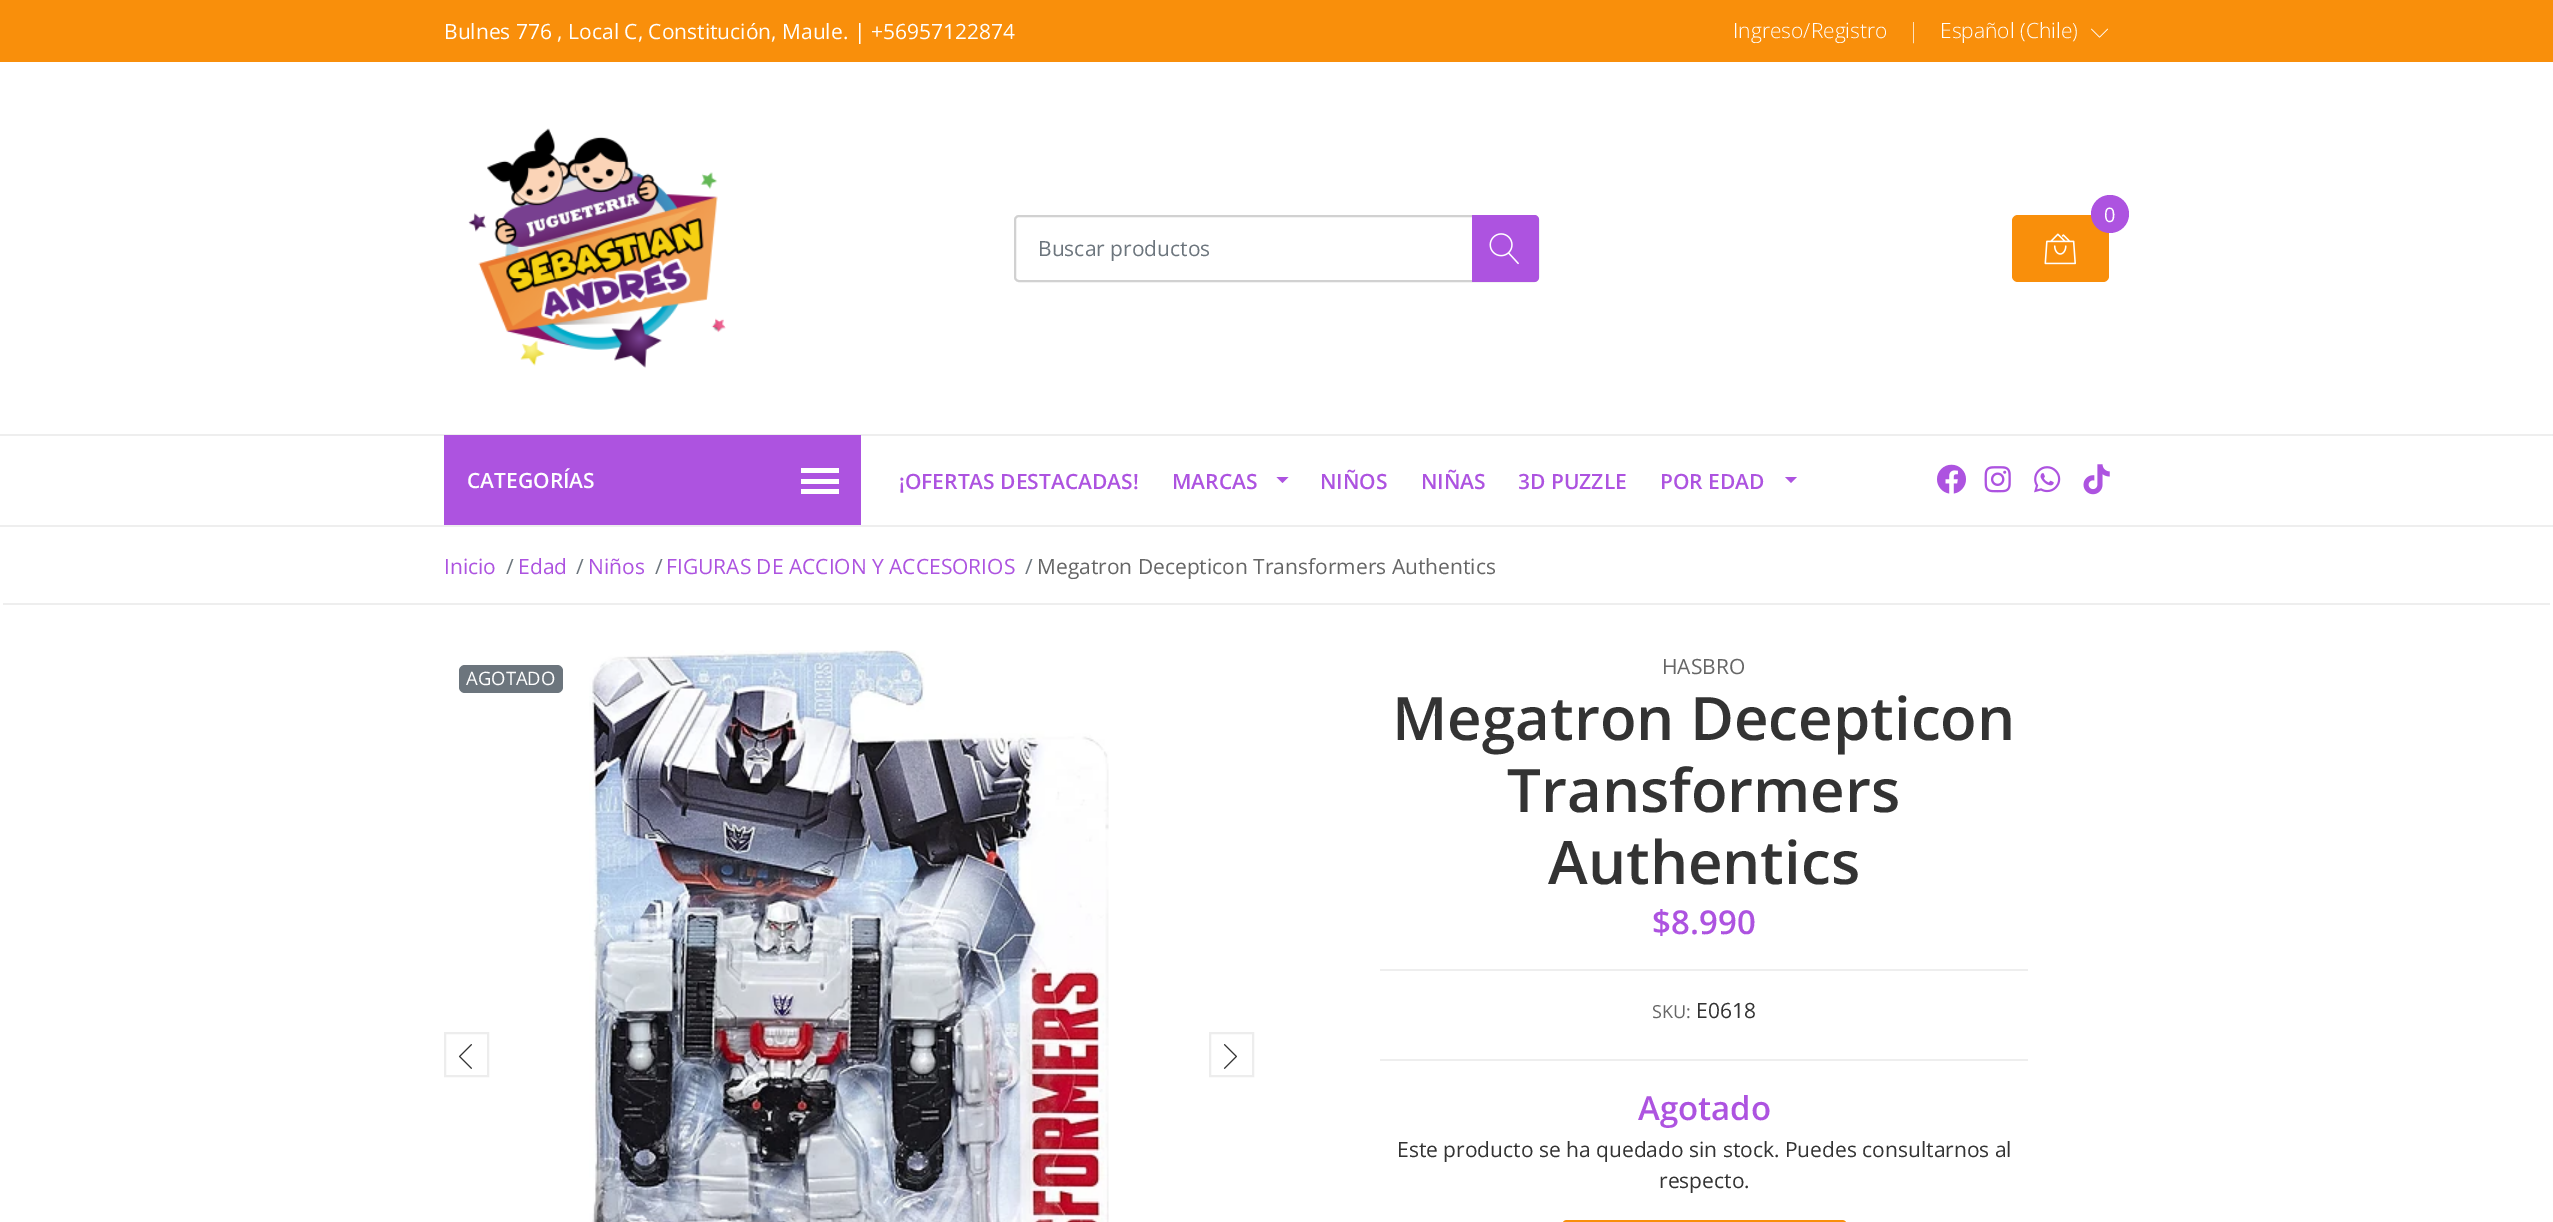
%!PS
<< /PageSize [2553 1222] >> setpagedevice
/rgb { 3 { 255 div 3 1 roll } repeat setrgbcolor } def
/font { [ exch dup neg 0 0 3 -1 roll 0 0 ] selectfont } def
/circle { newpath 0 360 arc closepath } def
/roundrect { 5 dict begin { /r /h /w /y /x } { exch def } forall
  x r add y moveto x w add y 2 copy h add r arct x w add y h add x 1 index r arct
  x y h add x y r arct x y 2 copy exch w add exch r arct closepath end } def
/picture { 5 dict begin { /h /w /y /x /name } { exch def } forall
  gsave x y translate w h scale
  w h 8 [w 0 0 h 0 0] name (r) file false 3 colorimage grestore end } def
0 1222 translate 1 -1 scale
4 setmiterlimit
255 255 255 rgb
0 0 2553 1222 rectfill
249 143 11 rgb
0 0 2553 62 rectfill
(img/1.rgb) 2091 28 17 10 picture
(img/2.rgb) 468 128 258 240 picture
2012 215 97 67 6 roundrect fill
(img/3.rgb) 2044 233 32 32 picture
173 83 224 rgb
2110 214 19 circle fill
209 209 209 rgb
2 setlinewidth
1015 216 523 65 4 roundrect stroke
173 83 224 rgb
1472 215 moveto 1534 215 lineto 1537 215 1539 217 1539 220 curveto 1539 277 lineto 1539 280 1537 282 1534 282 curveto 1472 282 lineto closepath fill
(img/4.rgb) 1489 233 30 32 picture
[
  [0 434 2553 2 238 238 238]
  [0 525 2553 2 238 238 238]
  [444 435 417 90 173 83 224]
  [801 468 38 5 255 255 255]
  [801 479 38 5 255 255 255]
  [801 489 38 5 255 255 255]
] { aload pop rgb rectfill } forall
173 83 224 rgb
1276.5 477 moveto 1288.5 477 lineto 1282.5 483 lineto closepath fill
1785 477 moveto 1797 477 lineto 1791 483 lineto closepath fill
(img/5.rgb) 1937 464 29 30 picture
(img/6.rgb) 1984 466 27 27 picture
(img/7.rgb) 2034 466 27 27 picture
(img/8.rgb) 2083 464 27 31 picture
238 238 238 rgb
3 603 2547 2 rectfill
(img/9.rgb) 589 650 520 572 picture
237 237 237 rgb
445 1033 43 43 rectstroke
(img/10.rgb) 458 1044 14 25 picture
1210 1033 43 43 rectstroke
(img/11.rgb) 1223 1044 14 25 picture
108 117 125 rgb
459 665 104 28 6 roundrect fill
238 238 238 rgb
1380 969 648 2 rectfill
1380 1059 648 2 rectfill
249 143 11 rgb
1562 1220 285 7 5 roundrect fill
/OpenSans-Regular 21 font
255 255 255 rgb
444 39 moveto (Bulnes 776 , Local C, Constitución, Maule. | +56957122874) show
/OpenSans-Light 21 font
[
  [(Ingreso/Registro) 1733 38]
  [(|) 1908 38]
  [(Español \(Chile\)) 1940 38]
] { aload pop moveto show } forall
/OpenSans-Regular 20 font
2104 222 moveto (0) show
/OpenSans-Regular 21 font
108 117 125 rgb
1038 256 moveto (Buscar productos) show
/OpenSans-SemiBold 21 font
255 255 255 rgb
467 488 moveto (CATEGORÍAS) show
173 83 224 rgb
[
  [(¡OFERTAS DESTACADAS!) 899 489]
  [(MARCAS) 1172 489]
  [(NIÑOS) 1320 489]
  [(NIÑAS) 1421 489]
  [(3D PUZZLE) 1518 489]
  [(POR EDAD) 1660 489]
] { aload pop moveto show } forall
/OpenSans-Regular 21 font
444 574 moveto (Inicio) show
108 117 125 rgb
506 574 moveto (/) show
173 83 224 rgb
518 574 moveto (Edad) show
108 117 125 rgb
576 574 moveto (/) show
173 83 224 rgb
588 574 moveto (Niños) show
108 117 125 rgb
655 574 moveto (/) show
173 83 224 rgb
666 574 moveto (FIGURAS DE ACCION Y ACCESORIOS) show
108 117 125 rgb
1025 574 moveto (/) show
102 102 102 rgb
1037 574 moveto (Megatron Decepticon Transformers Authentics) show
/OpenSans-Regular 18.5 font
255 255 255 rgb
466 685 moveto (AGOTADO) show
/OpenSans-Regular 21 font
102 102 102 rgb
1662 674 moveto (HASBRO) show
/OpenSans-SemiBold 60 font
51 51 51 rgb
[
  [(Megatron Decepticon) 1392 740]
  [(Transformers) 1507 812]
  [(Authentics) 1548 884]
] { aload pop moveto show } forall
/OpenSans-SemiBold 33 font
173 83 224 rgb
1652 934 moveto ($8.990) show
/OpenSans-Regular 18 font
102 102 102 rgb
1652 1018 moveto (SKU:) show
/OpenSans-Regular 21 font
51 51 51 rgb
1696 1018 moveto (E0618) show
/OpenSans-SemiBold 33 font
173 83 224 rgb
1638 1120 moveto (Agotado) show
/OpenSans-Regular 21 font
51 51 51 rgb
1397 1157 moveto (Este producto se ha quedado sin stock. Puedes consultarnos al) show
1659 1188 moveto (respecto.) show
showpage
